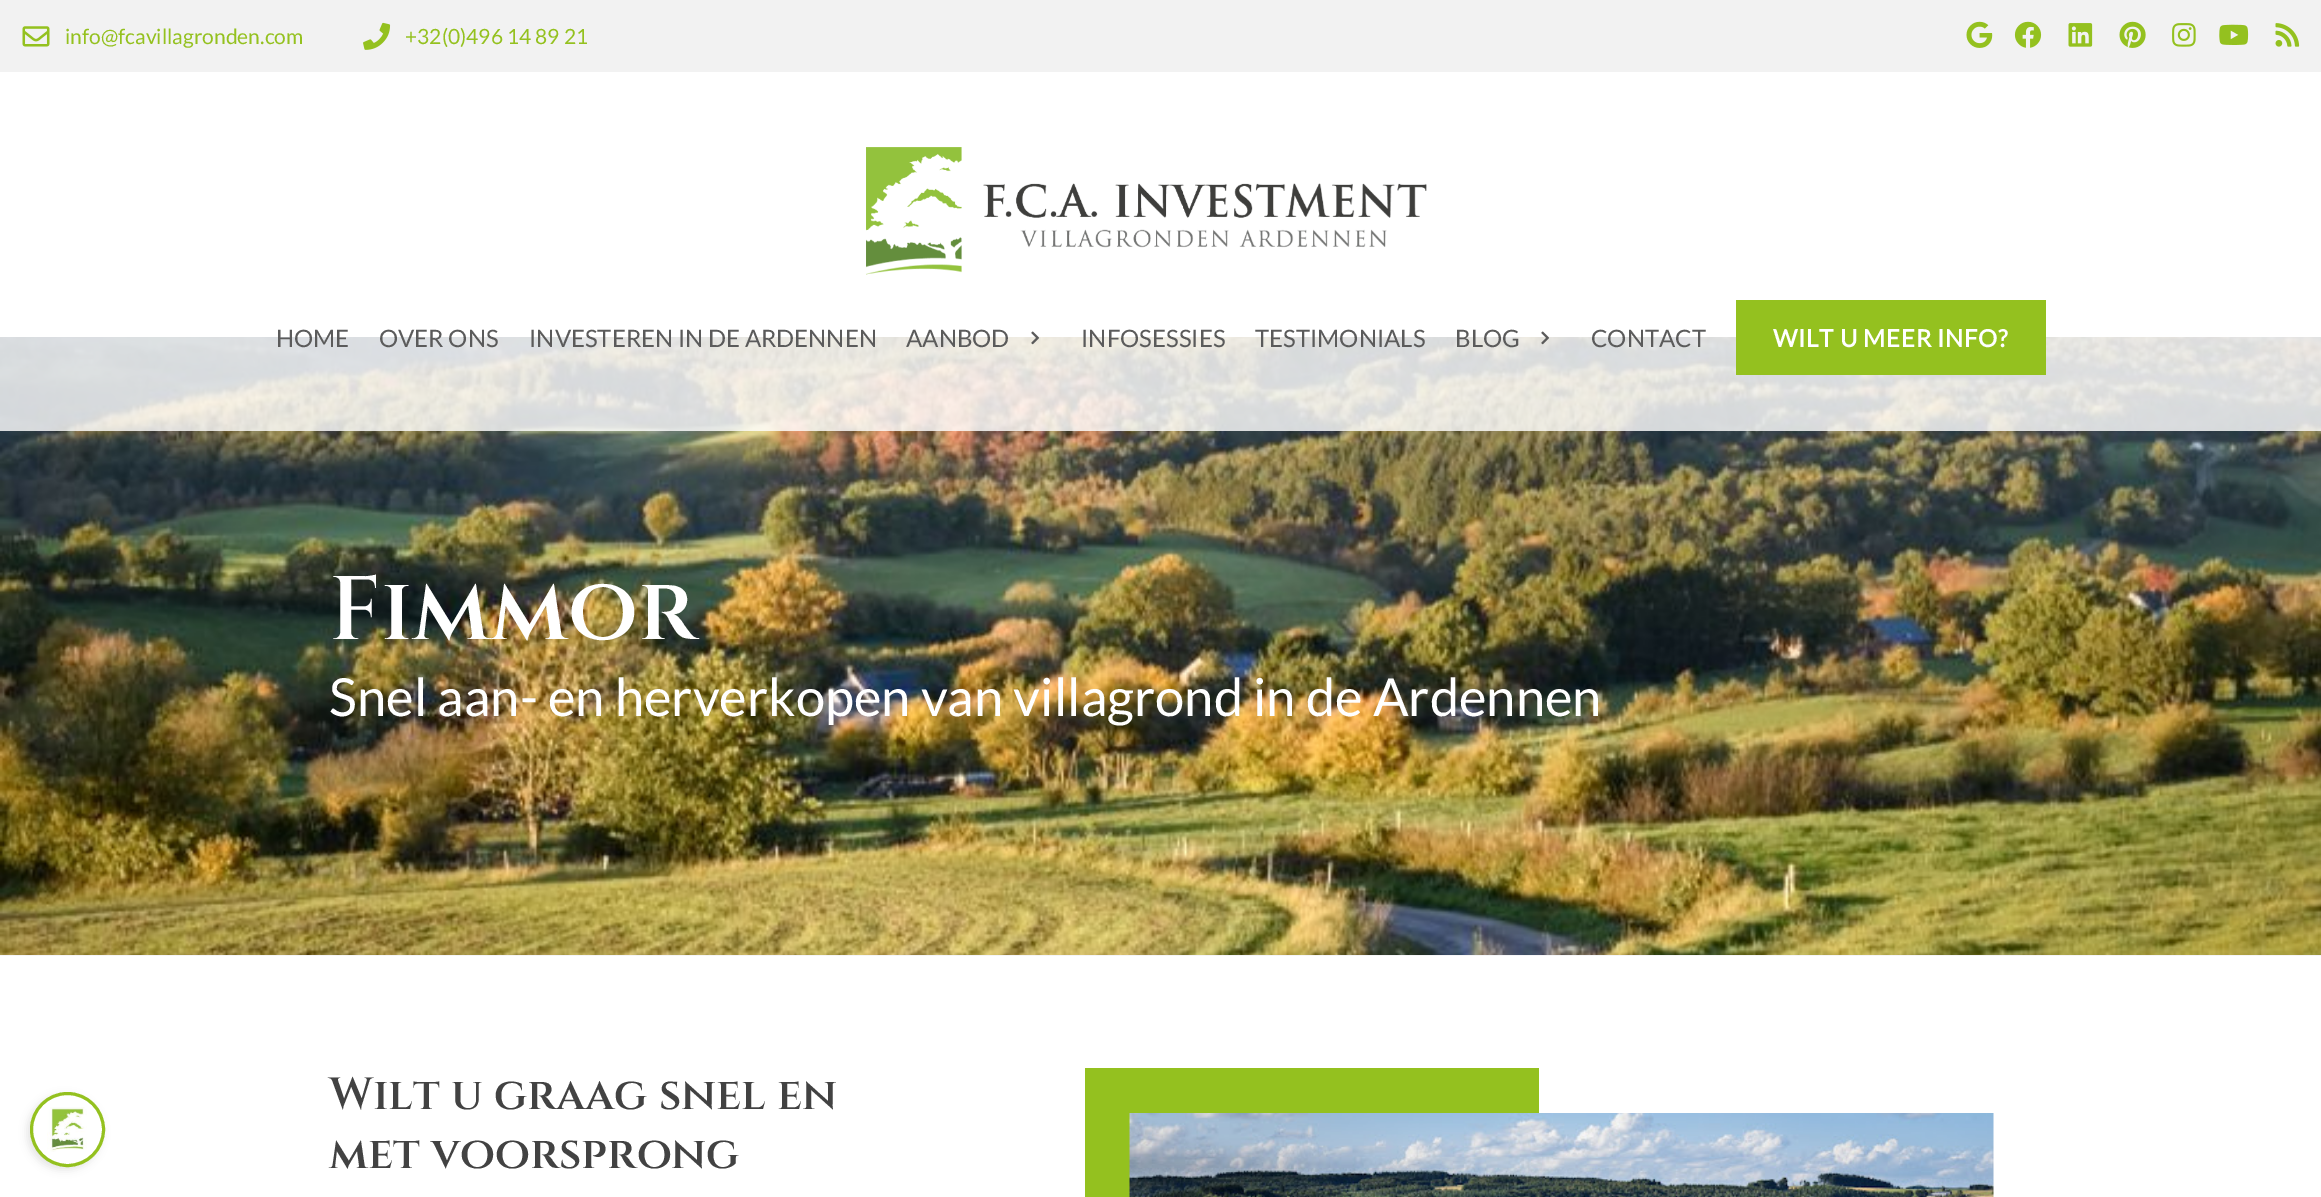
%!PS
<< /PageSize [2321 1197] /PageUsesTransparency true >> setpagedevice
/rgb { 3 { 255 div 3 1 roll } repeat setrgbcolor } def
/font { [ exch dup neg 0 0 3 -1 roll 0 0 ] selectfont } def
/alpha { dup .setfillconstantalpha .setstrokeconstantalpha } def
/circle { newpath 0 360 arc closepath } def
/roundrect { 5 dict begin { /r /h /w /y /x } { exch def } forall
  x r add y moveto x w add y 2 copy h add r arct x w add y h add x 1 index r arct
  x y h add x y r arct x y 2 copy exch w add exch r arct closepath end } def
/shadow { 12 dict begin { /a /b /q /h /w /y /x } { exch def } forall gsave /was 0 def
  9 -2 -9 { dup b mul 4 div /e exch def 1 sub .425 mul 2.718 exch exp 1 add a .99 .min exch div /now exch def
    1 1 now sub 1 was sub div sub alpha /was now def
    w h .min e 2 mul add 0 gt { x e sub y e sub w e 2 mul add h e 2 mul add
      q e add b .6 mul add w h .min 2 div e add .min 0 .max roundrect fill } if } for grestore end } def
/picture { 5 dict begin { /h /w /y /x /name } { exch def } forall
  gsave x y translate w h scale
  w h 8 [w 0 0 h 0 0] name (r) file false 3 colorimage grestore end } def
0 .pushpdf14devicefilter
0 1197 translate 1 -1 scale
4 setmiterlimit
255 255 255 rgb
0 0 2321 1197 rectfill
0 0 0 rgb
27 1095 75 75 37.5 4 0.1 shadow
255 255 255 rgb
67.5 1129.5 36 circle gsave fill grestore
148 193 31 rgb
3 setlinewidth
stroke
(img/1.rgb) 47 1107 40 45 picture
(img/14.rgb) 0 337 2321 618 picture
0.81 alpha
255 255 255 rgb
0 337 2321 94 rectfill
1 alpha
242 242 242 rgb
0 0 2321 72 rectfill
(img/2.rgb) 22 26 28 21 picture
(img/3.rgb) 363 22 28 28 picture
(img/4.rgb) 1966 21 27 27 picture
(img/5.rgb) 2014 21 28 27 picture
(img/6.rgb) 2068 23 25 24 picture
(img/7.rgb) 2119 21 27 27 picture
(img/8.rgb) 2172 23 24 24 picture
(img/9.rgb) 2219 24 30 21 picture
(img/10.rgb) 2275 23 25 24 picture
(img/11.rgb) 866 147 561 128 picture
(img/12.rgb) 1031 331 8 14 picture
(img/13.rgb) 1541 331 8 14 picture
[
  [1736 300 310 75 148 193 31]
  [0 955 2321 1 245 245 247]
  [1085 1068 454 129 148 193 31]
] { aload pop rgb rectfill } forall
(img/15.rgb) 1129 1113 865 84 picture
/Lato-Regular 21 font
65 44 moveto (info@fcavillagronden.com) show
405 44 moveto (+32\(0\)496 14 89 21) show
/Lato-Regular 24 font
91 91 91 rgb
[
  [(HOME) 276 347]
  [(OVER ONS) 379 347]
  [(INVESTEREN IN DE ARDENNEN) 529 347]
  [(AANBOD) 906 347]
  [(INFOSESSIES) 1081 347]
  [(TESTIMONIALS) 1255 347]
  [(BLOG) 1455 347]
  [(CONTACT) 1591 347]
] { aload pop moveto show } forall
/Lato-Bold 24 font
255 255 255 rgb
1773 347 moveto 0.75 0 (WILT U MEER INFO?) ashow
/Cinzel-SemiBold 90 font
329 639 moveto (Fimmor) show
/Lato-Regular 52.5 font
329 716 moveto (Snel aan- en herverkopen van villagrond in de Ardennen) show
/Cinzel-SemiBold 45 font
66 66 66 rgb
329 1109 moveto (Wilt u graag snel en) show
329 1168 moveto (met voorsprong) show
.poppdf14devicefilter showpage
